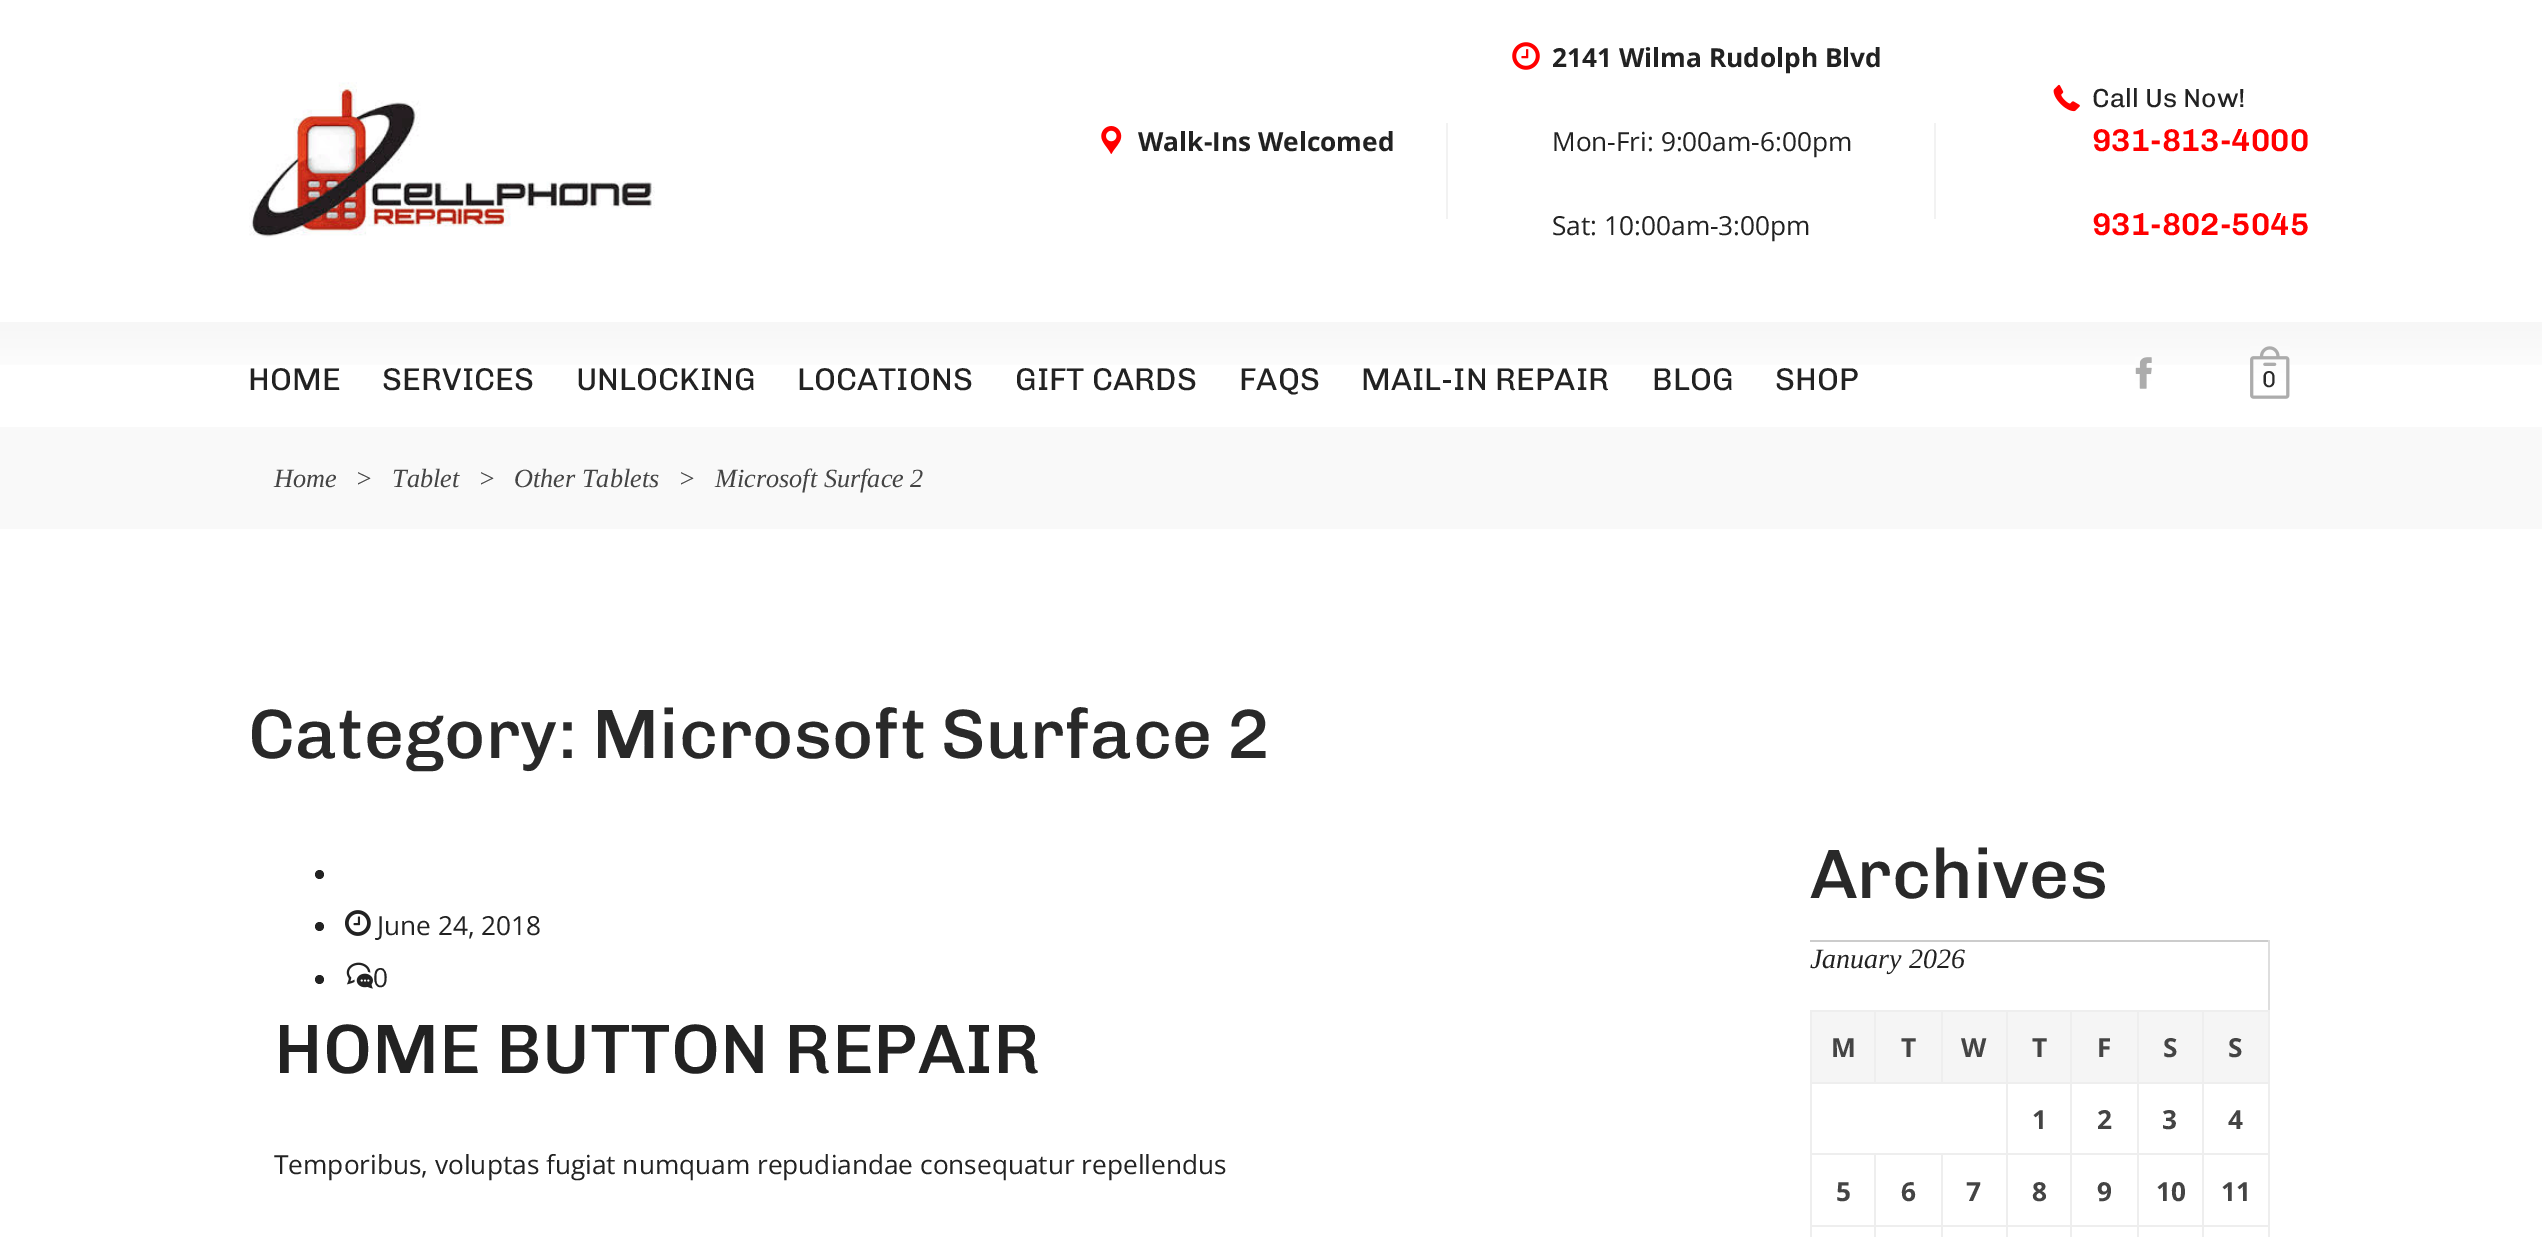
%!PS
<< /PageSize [2542 1237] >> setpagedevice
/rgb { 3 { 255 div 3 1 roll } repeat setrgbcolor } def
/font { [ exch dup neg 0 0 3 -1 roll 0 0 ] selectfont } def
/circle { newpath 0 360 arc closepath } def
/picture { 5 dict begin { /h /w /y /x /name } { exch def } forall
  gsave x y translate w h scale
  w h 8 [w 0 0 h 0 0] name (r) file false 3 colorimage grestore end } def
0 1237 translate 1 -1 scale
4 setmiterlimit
255 255 255 rgb
0 0 2542 1237 rectfill
(img/1.rgb) 249 82 406 156 picture
(img/2.rgb) 1101 126 21 28 picture
242 242 242 rgb
1446 123 2 96 rectfill
(img/3.rgb) 1512 42 28 28 picture
1934 123 2 96 rectfill
(img/4.rgb) 2053 84 27 28 picture
gsave 0 322 moveto 2542 322 lineto 2542 365 lineto 0 365 lineto closepath clip newpath
<< /ShadingType 2 /ColorSpace /DeviceRGB /Coords [1271 322 1271 427] /Extend [true true] /Function << /FunctionType 3 /Domain [0 1] /Functions [<< /FunctionType 2 /Domain [0 1] /C0 [0.969 0.969 0.969] /C1 [1 1 1] /N 1 >> << /FunctionType 2 /Domain [0 1] /C0 [1 1 1] /C1 [1 1 1] /N 1 >>] /Bounds [0.6] /Encode [0 1 0 1] >> >> shfill grestore
(img/5.rgb) 2135 357 17 32 picture
(img/6.rgb) 2250 346 40 53 picture
249 249 249 rgb
0 427 2542 102 rectfill
34 34 34 rgb
319.5 874.5 4.5 circle fill
319.5 926.5 4.5 circle fill
(img/7.rgb) 345 910 26 26 picture
319.5 979.5 4.5 circle fill
(img/8.rgb) 346 962 27 27 picture
[
  [1810 940 460 2 204 204 204]
  [2268 940 2 70 222 222 222]
  [1812 1012 62 70 245 245 245]
  [2202 1010 68 2 238 238 238]
  [2202 1082 68 2 238 238 238]
  [2202 1153 68 2 238 238 238]
  [2202 1225 68 2 238 238 238]
  [2202 1225 2 12 238 238 238]
  [2137 1225 66 2 238 238 238]
  [2202 1153 2 74 238 238 238]
  [2137 1153 66 2 238 238 238]
  [2202 1082 2 73 238 238 238]
  [2137 1082 66 2 238 238 238]
  [2202 1010 2 73 238 238 238]
  [2137 1010 66 2 238 238 238]
  [2137 1225 2 12 238 238 238]
  [2070 1225 69 2 238 238 238]
  [2137 1153 2 74 238 238 238]
  [2070 1153 69 2 238 238 238]
  [2137 1082 2 73 238 238 238]
  [2070 1082 69 2 238 238 238]
  [2137 1010 2 73 238 238 238]
  [2070 1010 69 2 238 238 238]
  [2070 1225 2 12 238 238 238]
  [2006 1225 66 2 238 238 238]
  [2070 1153 2 74 238 238 238]
  [2006 1153 66 2 238 238 238]
  [2070 1082 2 73 238 238 238]
  [2006 1082 66 2 238 238 238]
  [2070 1010 2 73 238 238 238]
  [2006 1010 66 2 238 238 238]
  [2006 1225 2 12 238 238 238]
  [1941 1225 66 2 238 238 238]
  [2006 1153 2 74 238 238 238]
  [1941 1153 66 2 238 238 238]
  [2006 1082 2 73 238 238 238]
  [1810 1082 197 2 238 238 238]
  [2006 1010 2 73 238 238 238]
  [1941 1010 66 2 238 238 238]
  [1941 1010 2 73 238 238 238]
  [1874 1010 69 2 238 238 238]
  [1874 1010 2 73 238 238 238]
  [1810 1010 66 2 238 238 238]
  [1941 1225 2 12 238 238 238]
  [1874 1225 69 2 238 238 238]
  [1941 1153 2 74 238 238 238]
  [1874 1153 69 2 238 238 238]
  [1874 1225 2 12 238 238 238]
  [1810 1225 66 2 238 238 238]
  [1874 1153 2 74 238 238 238]
  [1810 1153 66 2 238 238 238]
  [1810 1225 2 12 238 238 238]
  [1810 1153 2 74 238 238 238]
  [1810 1082 2 73 238 238 238]
  [1810 1010 2 73 238 238 238]
  [1876 1012 65 70 245 245 245]
  [1943 1012 63 70 245 245 245]
  [2008 1012 62 70 245 245 245]
  [2072 1012 65 70 245 245 245]
  [2139 1012 63 70 245 245 245]
  [2204 1012 64 70 245 245 245]
  [2268 1225 2 12 238 238 238]
  [2268 1153 2 74 238 238 238]
  [2268 1082 2 73 238 238 238]
  [2268 1010 2 73 238 238 238]
] { aload pop rgb rectfill } forall
/OpenSans-Bold 26.25 font
34 34 34 rgb
1138 151 moveto (Walk-Ins Welcomed) show
1552 67 moveto (2141 Wilma Rudolph Blvd) show
/OpenSans-Regular 26.25 font
1552 151 moveto (Mon-Fri: 9:00am-6:00pm) show
1552 235 moveto (Sat: 10:00am-3:00pm) show
/Chivo-Regular 26.25 font
2092 107 moveto (Call Us Now!) show
/Chivo-SemiBold 31.5 font
255 0 0 rgb
2092 151 moveto (931-813-4000) show
2092 235 moveto (931-802-5045) show
/Chivo-Regular 31.5 font
34 34 34 rgb
[
  [(HOME) 248 390]
  [(SERVICES) 382 390]
  [(UNLOCKING) 576 390]
  [(LOCATIONS) 797 390]
  [(GIFT CARDS) 1015 390]
  [(FAQS) 1239 390]
  [(MAIL-IN REPAIR) 1361 390]
  [(BLOG) 1652 390]
  [(SHOP) 1775 390]
] { aload pop moveto show } forall
/Chivo-Regular 23 font
41 41 41 rgb
2262 387 moveto (0) show
/LiberationSerif-Italic 26.25 font
68 68 68 rgb
[
  [(Home) 274 487]
  [(>) 355 487]
  [(Tablet) 392 487]
  [(>) 478 487]
  [(Other Tablets) 514 487]
  [(>) 678 487]
  [(Microsoft Surface 2) 715 487]
] { aload pop moveto show } forall
/Chivo-Medium 70 font
41 41 41 rgb
248 758 moveto (Category: Microsoft Surface 2) show
/OpenSans-Regular 26.25 font
34 34 34 rgb
377 935 moveto (June 24, 2018) show
373 987 moveto (0) show
/Chivo-Medium 70 font
274 1073 moveto (HOME BUTTON REPAIR) show
/OpenSans-Regular 26.25 font
274 1174 moveto (Temporibus, voluptas fugiat numquam repudiandae consequatur repellendus) show
/Chivo-Medium 70 font
41 41 41 rgb
1810 898 moveto (Archives) show
/LiberationSerif-Italic 28 font
34 34 34 rgb
1810 968 moveto (January 2026) show
/OpenSans-Bold 26.25 font
68 68 68 rgb
[
  [(M) 1831 1057]
  [(T) 1901 1057]
  [(W) 1961 1057]
  [(T) 2032 1057]
  [(F) 2097 1057]
  [(S) 2163 1057]
  [(S) 2228 1057]
  [(1) 2032 1129]
  [(2) 2097 1129]
  [(3) 2162 1129]
  [(4) 2228 1129]
  [(5) 1836 1201]
  [(6) 1901 1201]
  [(7) 1966 1201]
  [(8) 2032 1201]
  [(9) 2097 1201]
  [(10) 2156 1201]
  [(11) 2221 1201]
] { aload pop moveto show } forall
showpage
